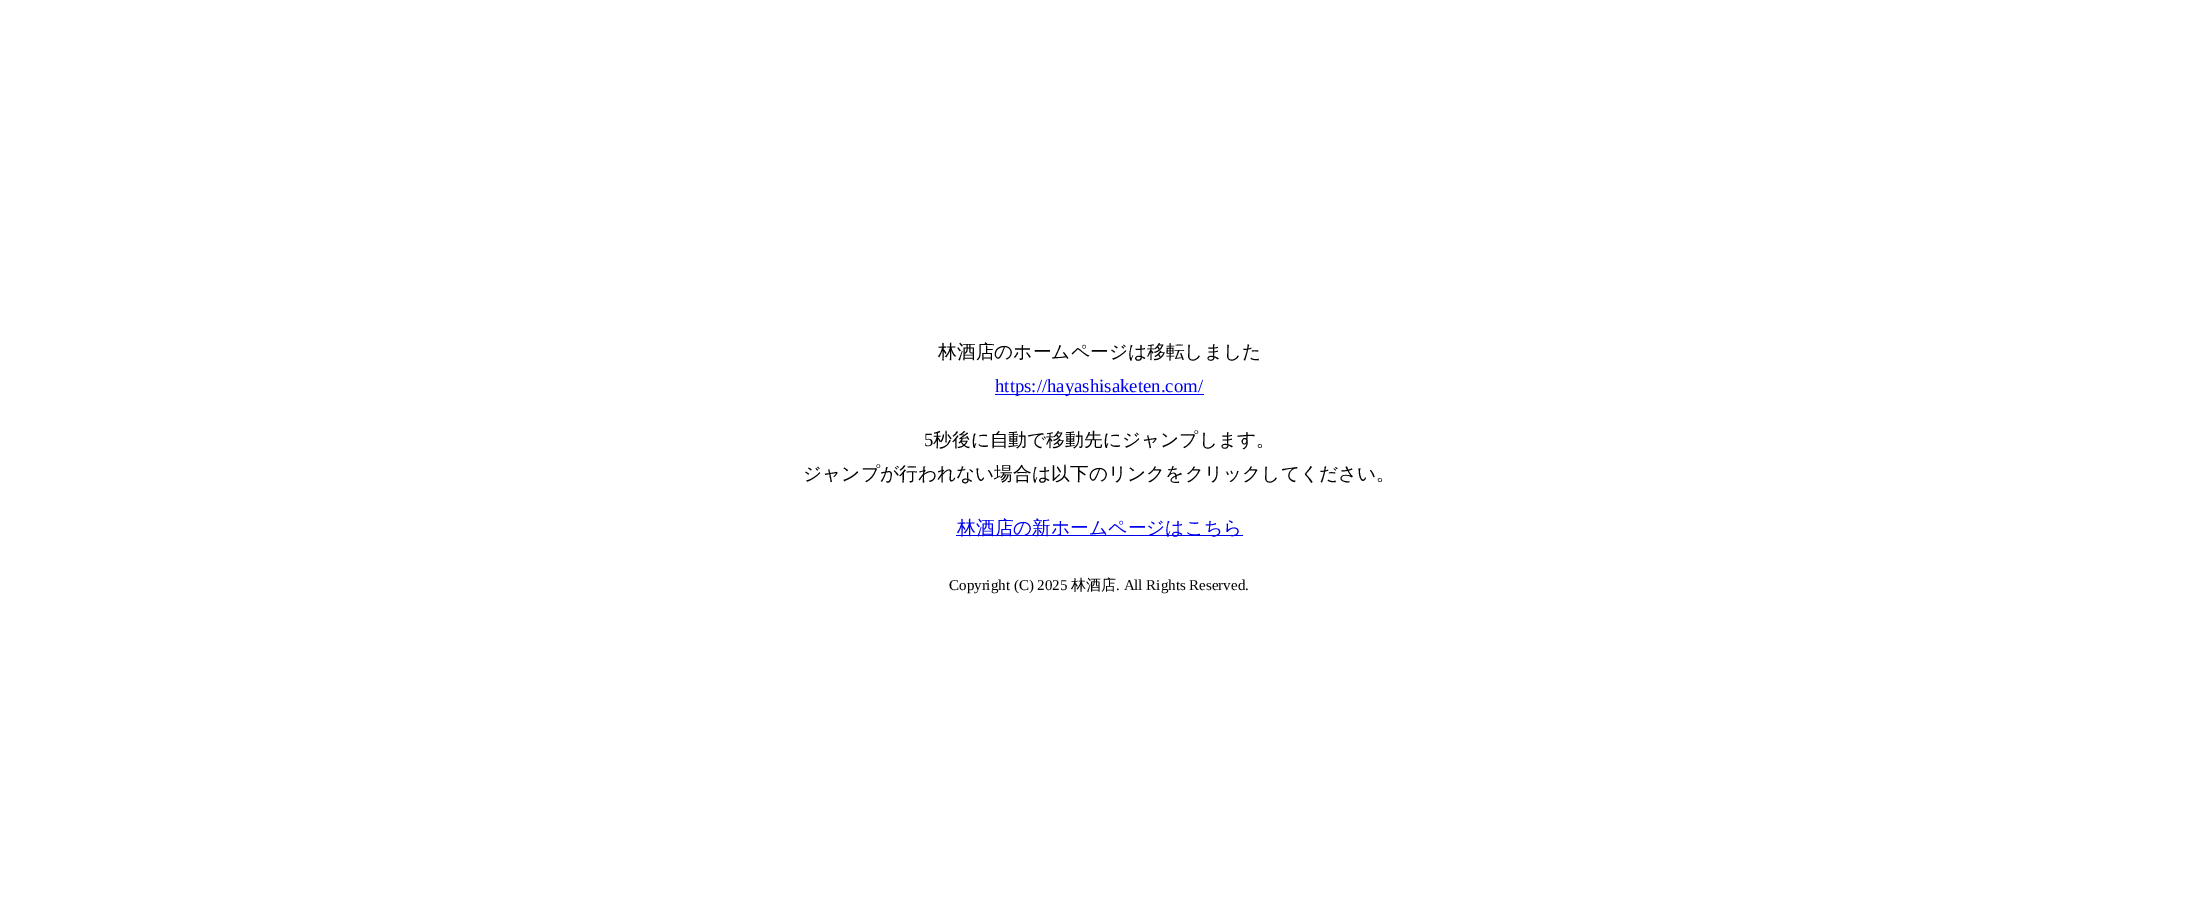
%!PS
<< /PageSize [2198 914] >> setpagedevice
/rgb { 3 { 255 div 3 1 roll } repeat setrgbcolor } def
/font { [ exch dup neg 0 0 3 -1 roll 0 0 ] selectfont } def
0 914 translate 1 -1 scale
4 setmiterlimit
255 255 255 rgb
0 0 2198 914 rectfill
0 0 238 rgb
995 394 209 1 rectfill
956 535 287 1 rectfill
/WenQuanYiZenHei-Medium 18.75 font
0 0 0 rgb
938 358 moveto (林酒店のホームページは移転しました) show
/LiberationSerif-Regular 18.75 font
0 0 238 rgb
995 392 moveto (https://hayashisaketen.com/) show
0 0 0 rgb
924 446 moveto (5) show
/WenQuanYiZenHei-Medium 18.75 font
933 446 moveto (秒後に自動で移動先にジャンプします。) show
803 480 moveto (ジャンプが行われない場合は以下のリンクをクリックしてください。) show
0 0 238 rgb
957 534 moveto (林酒店の新ホームページはこちら) show
/LiberationSerif-Regular 15 font
0 0 0 rgb
949 590 moveto (Copyright \(C\) 2025) show
/WenQuanYiZenHei-Medium 15 font
1071 590 moveto (林酒店) show
/LiberationSerif-Regular 15 font
1116 590 moveto (. All Rights Reserved.) show
showpage
